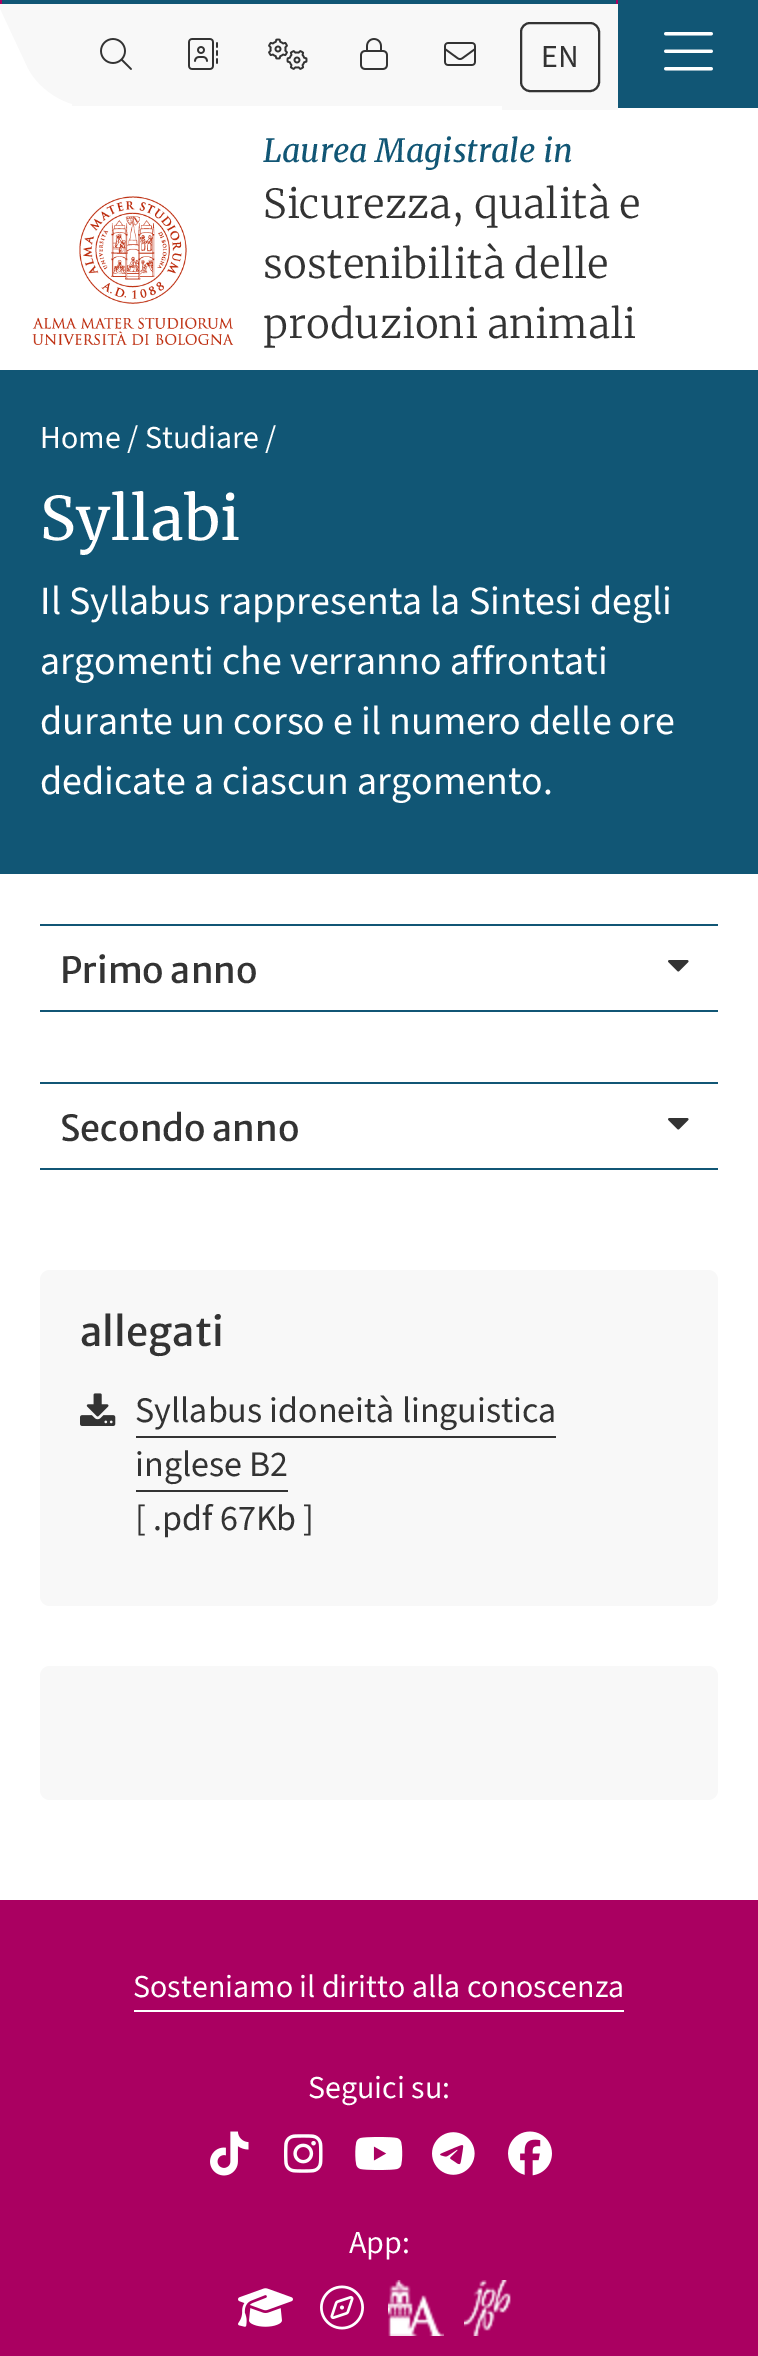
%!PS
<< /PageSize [758 2356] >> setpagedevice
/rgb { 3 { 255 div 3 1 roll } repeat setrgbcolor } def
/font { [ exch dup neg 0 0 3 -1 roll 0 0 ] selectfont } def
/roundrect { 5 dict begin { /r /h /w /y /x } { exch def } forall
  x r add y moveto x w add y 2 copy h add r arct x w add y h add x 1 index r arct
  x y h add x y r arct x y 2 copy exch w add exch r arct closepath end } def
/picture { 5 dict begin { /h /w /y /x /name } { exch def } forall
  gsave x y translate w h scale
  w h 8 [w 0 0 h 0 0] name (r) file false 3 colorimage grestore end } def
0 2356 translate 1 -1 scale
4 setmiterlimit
255 255 255 rgb
0 0 758 2356 rectfill
[
  [0 0 618 4 170 0 97]
  [2 0 614 4 17 86 117]
  [72 4 430 102 248 248 248]
] { aload pop rgb rectfill } forall
-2 4 moveto 158 4 lineto 180 4 207 22 217 44 curveto 246 106 lineto 86 106 lineto 64 106 37 88 27 66 curveto closepath fill
(img/1.rgb) 100 38 32 32 picture
(img/2.rgb) 188 38 30 32 picture
(img/3.rgb) 268 38 40 32 picture
(img/4.rgb) 360 38 28 32 picture
(img/5.rgb) 444 42 32 24 picture
502 4 116 106 rectfill
51 51 51 rgb
2 setlinewidth
521 23 78 68 9 roundrect stroke
17 86 117 rgb
618 0 140 108 rectfill
(img/6.rgb) 664 32 49 39 picture
(img/7.rgb) 32 196 202 149 picture
[
  [0 370 758 504 17 86 117]
  [40 924 678 2 17 86 117]
  [40 1010 678 2 17 86 117]
] { aload pop rgb rectfill } forall
(img/8.rgb) 668 960 21 12 picture
40 1082 678 2 rectfill
40 1168 678 2 rectfill
(img/8.rgb) 668 1118 21 12 picture
248 248 248 rgb
40 1270 678 336 10 roundrect fill
(img/9.rgb) 80 1393 36 33 picture
51 51 51 rgb
136 1436 420 2 rectfill
136 1490 152 2 rectfill
248 248 248 rgb
40 1666 678 134 10 roundrect fill
170 0 97 rgb
0 1900 758 456 rectfill
255 255 255 rgb
134 2010 490 2 rectfill
(img/10.rgb) 210 2131 39 45 picture
(img/11.rgb) 284 2134 39 39 picture
(img/12.rgb) 355 2137 48 33 picture
(img/13.rgb) 432 2132 43 43 picture
(img/14.rgb) 508 2131 44 45 picture
(img/15.rgb) 238 2288 55 39 picture
(img/16.rgb) 320 2285 44 45 picture
(img/17.rgb) 388 2280 56 56 picture
(img/18.rgb) 464 2280 47 56 picture
/SourceSans3-Regular 32 font
51 51 51 rgb
541 67 moveto (EN) show
/Merriweather-Italic 32 font
17 86 117 rgb
263 162 moveto (Laurea Magistrale in) show
/Merriweather-Light 40 font
51 51 51 rgb
[
  [(Sicurezza, qualità e) 263 218]
  [(sostenibilità delle) 263 278]
  [(produzioni animali) 263 338]
] { aload pop moveto show } forall
/SourceSans3-Regular 32 font
255 255 255 rgb
40 448 moveto (Home /) show
145 448 moveto (Studiare /) show
/Merriweather-Regular 60 font
40 540 moveto (Syllabi) show
/SourceSans3-Regular 40 font
[
  [(Il Syllabus rappresenta la Sintesi degli) 40 614]
  [(argomenti che verranno affrontati) 40 674]
  [(durante un corso e il numero delle ore) 40 734]
  [(dedicate a ciascun argomento.) 40 794]
] { aload pop moveto show } forall
/MerriweatherSans-Regular 36 font
51 51 51 rgb
60 983 moveto (Primo anno) show
60 1141 moveto (Secondo anno) show
/MerriweatherSans-Regular 40 font
80 1346 moveto (allegati) show
/SourceSans3-Regular 36 font
[
  [(Syllabus idoneità linguistica) 135 1422]
  [(inglese B2) 135 1476]
  [([ .pdf 67Kb ]) 135 1530]
] { aload pop moveto show } forall
/SourceSans3-Regular 32 font
255 255 255 rgb
[
  [(Sosteniamo il diritto alla conoscenza) 133 1997]
  [(Seguici su:) 308 2098]
  [(App:) 349 2253]
] { aload pop moveto show } forall
showpage
